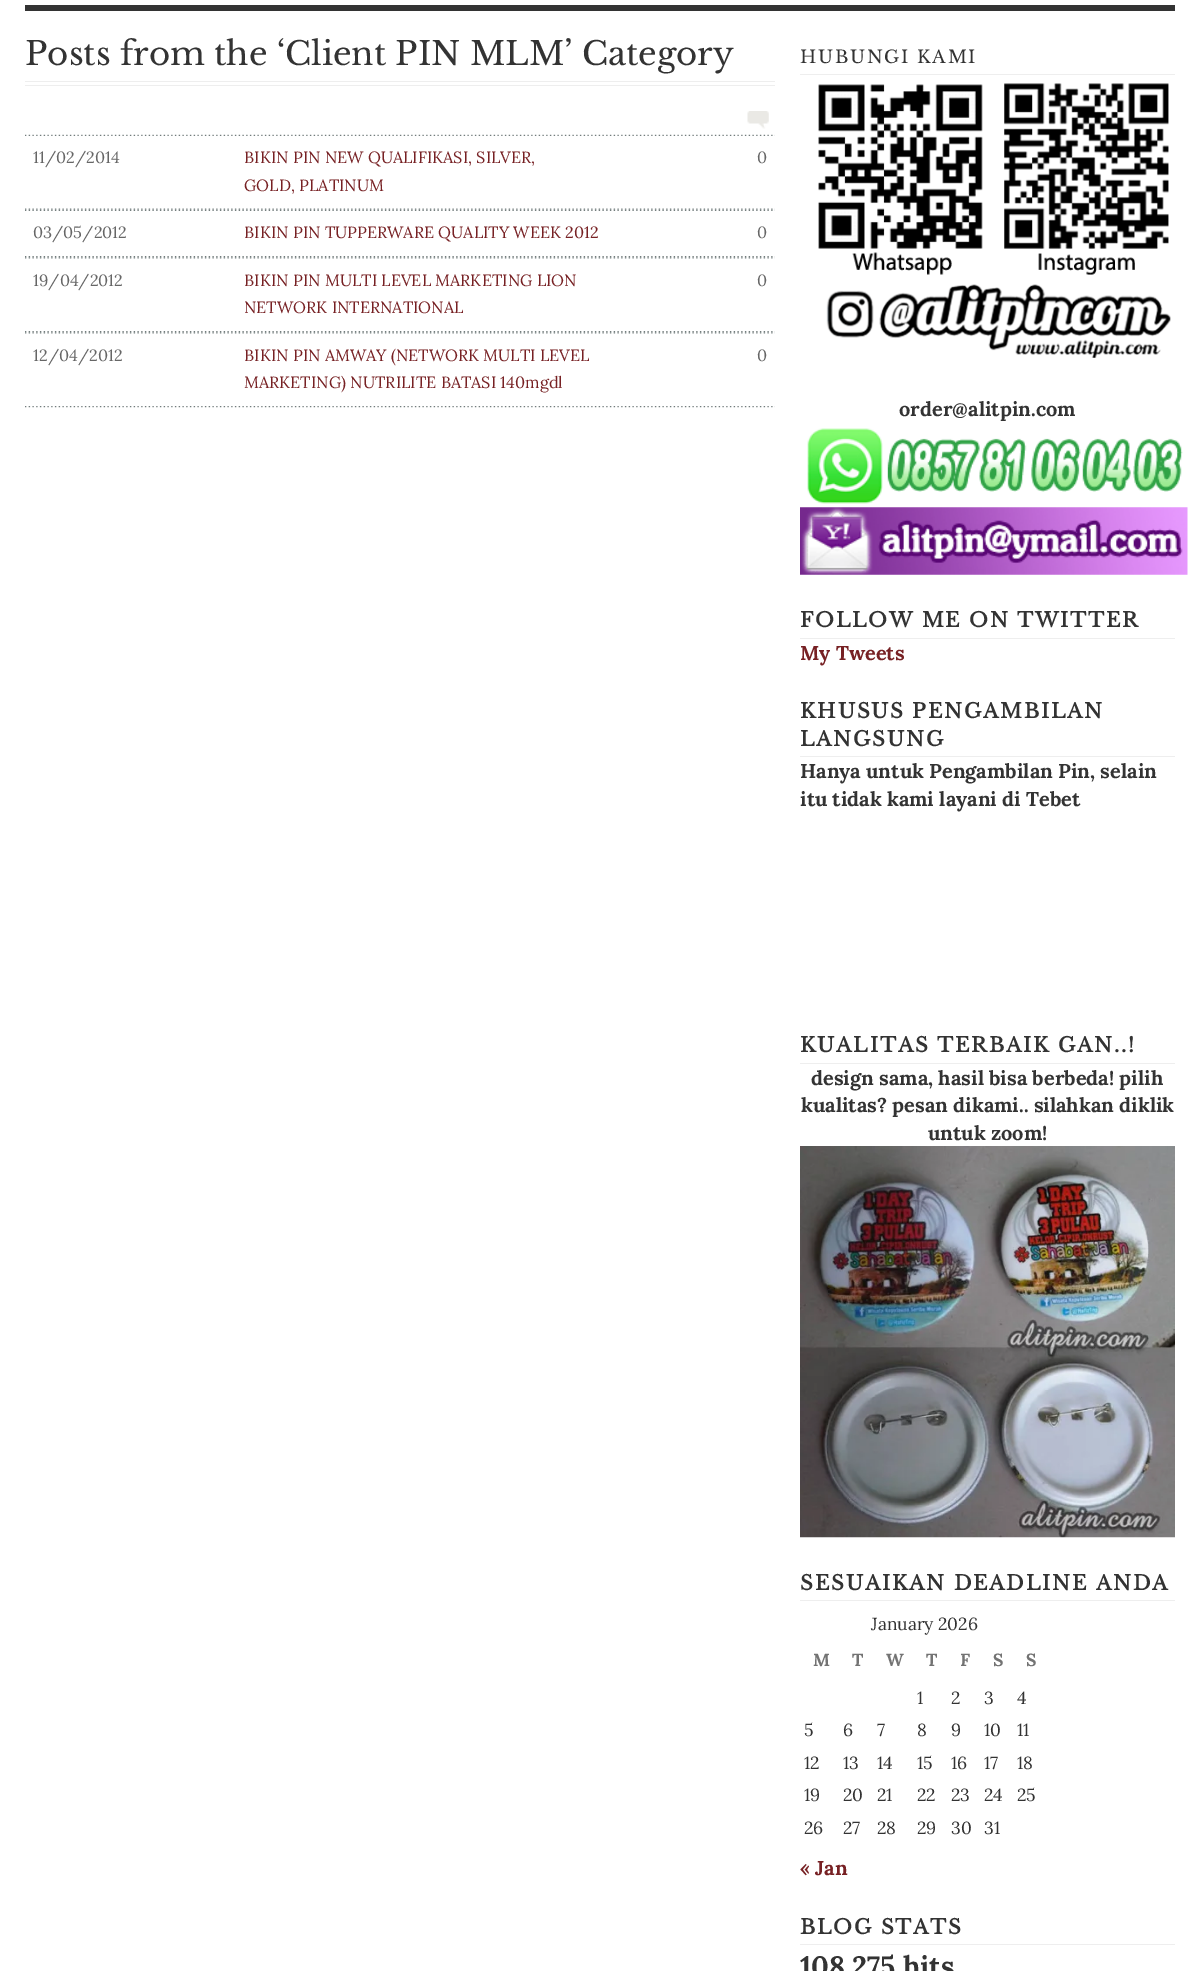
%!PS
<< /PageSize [1200 1971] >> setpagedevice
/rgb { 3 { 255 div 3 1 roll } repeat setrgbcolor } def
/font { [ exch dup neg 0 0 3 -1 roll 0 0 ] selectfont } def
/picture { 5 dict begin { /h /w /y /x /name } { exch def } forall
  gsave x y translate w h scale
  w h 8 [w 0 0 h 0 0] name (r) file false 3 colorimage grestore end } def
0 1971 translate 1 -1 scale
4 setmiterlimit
255 255 255 rgb
0 0 1200 1971 rectfill
[
  [25 5 1150 6 51 51 51]
  [25 81 750 1 238 238 238]
  [25 85 750 1 238 238 238]
] { aload pop rgb rectfill } forall
(img/1.rgb) 747 111 22 18 picture
(img/2.rgb) 25 208 750 2 picture
(img/3.rgb) 25 134 750 2 picture
(img/4.rgb) 25 256 750 2 picture
(img/5.rgb) 25 209 750 2 picture
(img/4.rgb) 25 331 750 2 picture
(img/6.rgb) 25 257 750 2 picture
(img/4.rgb) 25 406 750 2 picture
(img/6.rgb) 25 332 750 2 picture
800 74 375 1 rectfill
(img/7.rgb) 818 83 353 275 picture
(img/8.rgb) 807 428 376 76 picture
(img/9.rgb) 800 507 388 68 picture
[
  [800 638 375 1 238 238 238]
  [800 756 375 1 238 238 238]
  [800 1063 375 1 238 238 238]
] { aload pop rgb rectfill } forall
(img/10.rgb) 800 1146 375 392 picture
800 1600 375 1 rectfill
800 1944 375 1 rectfill
/LibreBaskerville-Regular 32.5 font
51 51 51 rgb
25 65 moveto (Posts from the ‘Client PIN MLM’ Category) show
/Lora-Regular 16.25 font
102 102 102 rgb
33 163 moveto (11/02/2014) show
119 33 36 rgb
244 163 moveto (BIKIN PIN NEW QUALIFIKASI, SILVER,) show
102 102 102 rgb
757 163 moveto (0) show
119 33 36 rgb
244 191 moveto (GOLD, PLATINUM) show
102 102 102 rgb
33 238 moveto (03/05/2012) show
119 33 36 rgb
244 238 moveto (BIKIN PIN TUPPERWARE QUALITY WEEK 2012) show
102 102 102 rgb
757 238 moveto (0) show
33 286 moveto (19/04/2012) show
119 33 36 rgb
244 286 moveto (BIKIN PIN MULTI LEVEL MARKETING LION) show
102 102 102 rgb
757 286 moveto (0) show
119 33 36 rgb
244 313 moveto (NETWORK INTERNATIONAL) show
102 102 102 rgb
33 361 moveto (12/04/2012) show
119 33 36 rgb
244 361 moveto (BIKIN PIN AMWAY \(NETWORK MULTI LEVEL) show
102 102 102 rgb
757 361 moveto (0) show
119 33 36 rgb
244 388 moveto (MARKETING\) NUTRILITE BATASI 140mgdl) show
/LibreBaskerville-Regular 17.5 font
51 51 51 rgb
800 63 moveto 1.75 0 (HUBUNGI KAMI) ashow
/Lora-Bold 20 font
899 416 moveto (order@alitpin.com) show
/LibreBaskerville-Bold 20 font
800 627 moveto 1.75 0 (FOLLOW ME ON TWITTER) ashow
/Lora-Bold 20 font
119 33 36 rgb
800 660 moveto (My Tweets) show
/LibreBaskerville-Bold 20 font
51 51 51 rgb
800 718 moveto 1.75 0 (KHUSUS PENGAMBILAN) ashow
800 746 moveto 1.75 0 (LANGSUNG) ashow
/Lora-Bold 20 font
800 778 moveto (Hanya untuk Pengambilan Pin, selain) show
800 806 moveto (itu tidak kami layani di Tebet) show
/LibreBaskerville-Bold 20 font
800 1052 moveto 1.75 0 (KUALITAS TERBAIK GAN..!) ashow
/Lora-Bold 20 font
[
  [(design sama, hasil bisa berbeda! pilih) 811 1085]
  [(kualitas? pesan dikami.. silahkan diklik) 801 1112]
  [(untuk zoom!) 928 1140]
] { aload pop moveto show } forall
/LibreBaskerville-Bold 20 font
800 1590 moveto 1.75 0 (SESUAIKAN DEADLINE ANDA) ashow
/Lora-Regular 17.5 font
871 1630 moveto (January 2026) show
/Lora-Bold 17.5 font
115 115 115 rgb
[
  [(M) 813 1666]
  [(T) 852 1666]
  [(W) 886 1666]
  [(T) 926 1666]
  [(F) 960 1666]
  [(S) 993 1666]
  [(S) 1026 1666]
] { aload pop moveto show } forall
/Lora-Regular 17.5 font
51 51 51 rgb
[
  [(1) 917 1704]
  [(2) 951 1704]
  [(3) 984 1704]
  [(4) 1017 1704]
  [(5) 804 1736]
  [(6) 843 1736]
  [(7) 877 1736]
  [(8) 917 1736]
  [(9) 951 1736]
  [(10) 984 1736]
  [(11) 1017 1736]
  [(12) 804 1769]
  [(13) 843 1769]
  [(14) 877 1769]
  [(15) 917 1769]
  [(16) 951 1769]
  [(17) 984 1769]
  [(18) 1017 1769]
  [(19) 804 1801]
  [(20) 843 1801]
  [(21) 877 1801]
  [(22) 917 1801]
  [(23) 951 1801]
  [(24) 984 1801]
  [(25) 1017 1801]
  [(26) 804 1834]
  [(27) 843 1834]
  [(28) 877 1834]
  [(29) 917 1834]
  [(30) 951 1834]
  [(31) 984 1834]
] { aload pop moveto show } forall
/Lora-Bold 20 font
119 33 36 rgb
800 1875 moveto (« Jan) show
/LibreBaskerville-Bold 20 font
51 51 51 rgb
800 1934 moveto 1.75 0 (BLOG STATS) ashow
/Lora-Bold 28 font
800 1976 moveto (108,275 hits) show
showpage
